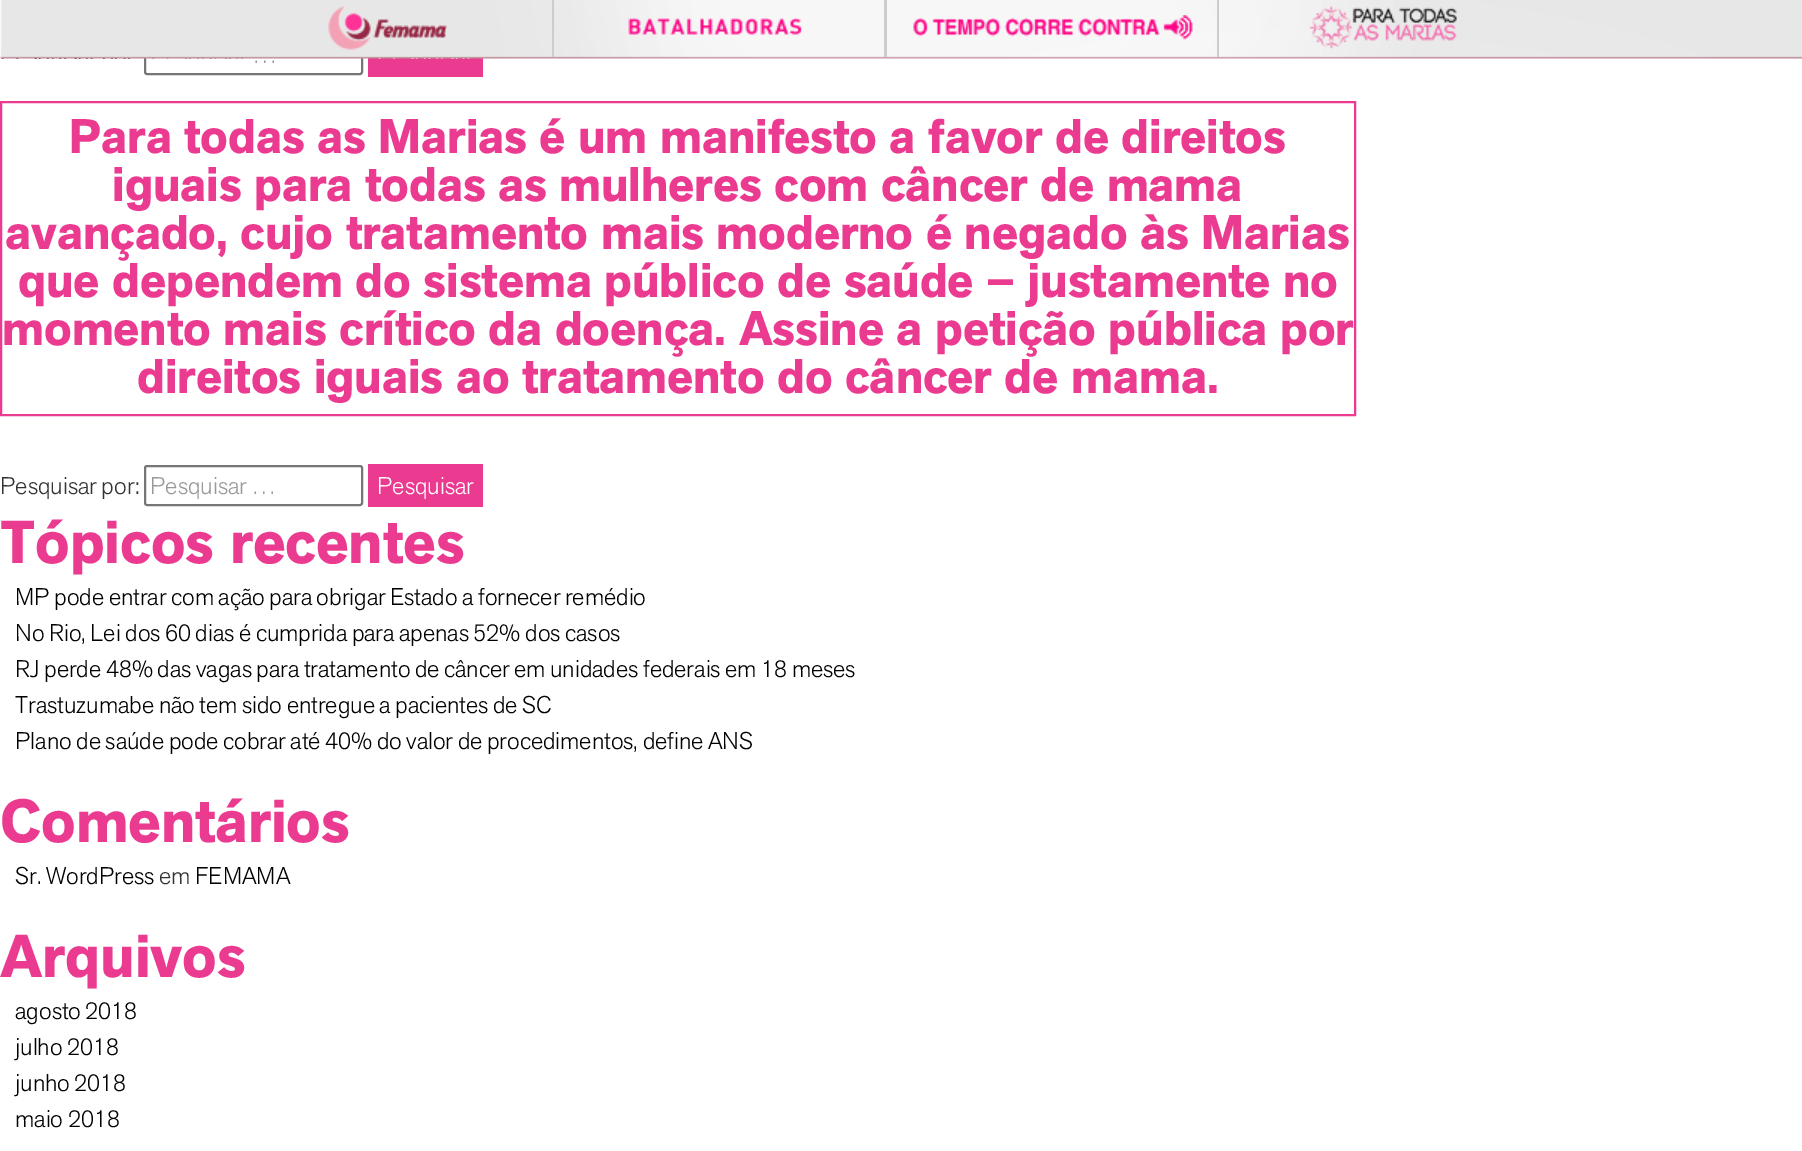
%!PS
<< /PageSize [1802 1151] >> setpagedevice
/rgb { 3 { 255 div 3 1 roll } repeat setrgbcolor } def
/font { [ exch dup neg 0 0 3 -1 roll 0 0 ] selectfont } def
/roundrect { 5 dict begin { /r /h /w /y /x } { exch def } forall
  x r add y moveto x w add y 2 copy h add r arct x w add y h add x 1 index r arct
  x y h add x y r arct x y 2 copy exch w add exch r arct closepath end } def
/picture { 5 dict begin { /h /w /y /x /name } { exch def } forall
  gsave x y translate w h scale
  w h 8 [w 0 0 h 0 0] name (r) file false 3 colorimage grestore end } def
0 1151 translate 1 -1 scale
4 setmiterlimit
255 255 255 rgb
0 0 1802 1151 rectfill
118 118 118 rgb
2 setlinewidth
145 36 217 38 2 roundrect stroke
235 59 144 rgb
368 58 115 19 rectfill
(img/1.rgb) 0 0 1802 59 picture
(img/2.rgb) 328 6 119 44 picture
(img/3.rgb) 628 18 174 17 picture
204 204 204 rgb
884 0 3 57 rectfill
552 0 2 57 rectfill
(img/4.rgb) 913 15 280 25 picture
1217 0 2 57 rectfill
(img/5.rgb) 1309 5 148 44 picture
235 59 144 rgb
1 102 1354 313 rectstroke
118 118 118 rgb
145 466 217 39 2 roundrect stroke
235 59 144 rgb
368 464 115 43 rectfill
/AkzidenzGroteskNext-Light 24 font
153 153 153 rgb
252 63 moveto (…) show
/AkzidenzGroteskNext-Bold 48 font
235 59 144 rgb
[
  [(Para todas as Marias é um manifesto a favor de direitos) 69 153]
  [(iguais para todas as mulheres com câncer de mama) 112 201]
  [(avançado, cujo tratamento mais moderno é negado às Marias) 5 249]
  [(que dependem do sistema público de saúde – justamente no) 18 297]
  [(momento mais crítico da doença. Assine a petição pública por) 2 345]
  [(direitos iguais ao tratamento do câncer de mama.) 137 393]
] { aload pop moveto show } forall
/AkzidenzGroteskNext-Light 24 font
51 51 51 rgb
0 494 moveto (Pesquisar por:) show
153 153 153 rgb
150 494 moveto (Pesquisar …) show
255 255 255 rgb
377 494 moveto (Pesquisar) show
/AkzidenzGroteskNext-Bold 60 font
235 59 144 rgb
0 563 moveto (Tópicos recentes) show
/AkzidenzGroteskNext-Light 24 font
0 0 0 rgb
[
  [(MP pode entrar com ação para obrigar Estado a fornecer remédio) 15 605]
  [(No Rio, Lei dos 60 dias é cumprida para apenas 52% dos casos) 15 641]
  [(RJ perde 48% das vagas para tratamento de câncer em unidades federais em 18 meses) 15 677]
  [(Trastuzumabe não tem sido entregue a pacientes de SC) 15 713]
  [(Plano de saúde pode cobrar até 40% do valor de procedimentos, define ANS) 15 749]
] { aload pop moveto show } forall
/AkzidenzGroteskNext-Bold 60 font
235 59 144 rgb
0 842 moveto (Comentários) show
/AkzidenzGroteskNext-Light 24 font
0 0 0 rgb
15 884 moveto (Sr. WordPress) show
51 51 51 rgb
159 884 moveto (em) show
0 0 0 rgb
195 884 moveto (FEMAMA) show
/AkzidenzGroteskNext-Bold 60 font
235 59 144 rgb
0 977 moveto (Arquivos) show
/AkzidenzGroteskNext-Light 24 font
0 0 0 rgb
[
  [(agosto 2018) 15 1019]
  [(julho 2018) 15 1055]
  [(junho 2018) 15 1091]
  [(maio 2018) 15 1127]
] { aload pop moveto show } forall
showpage
